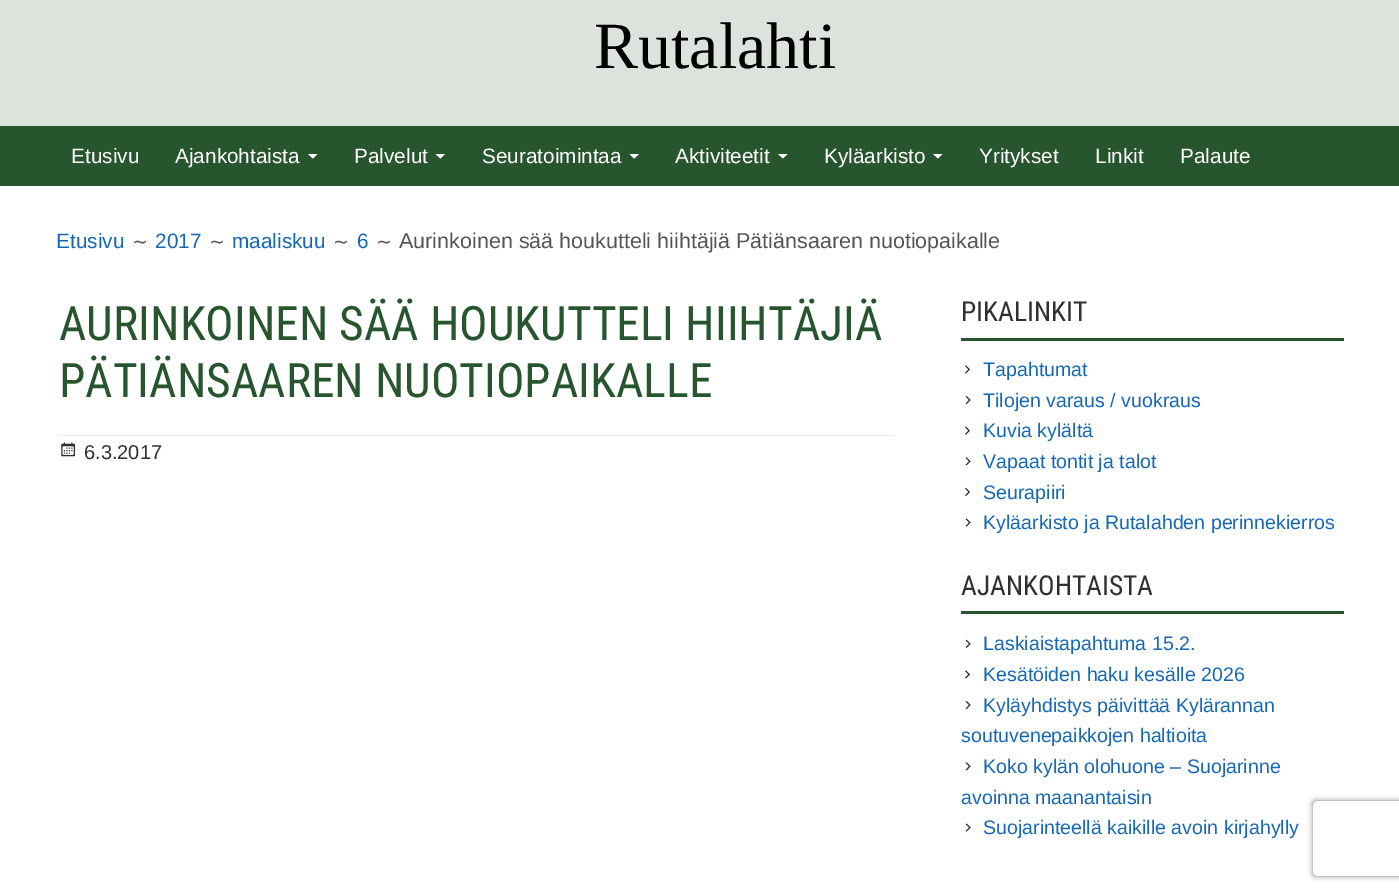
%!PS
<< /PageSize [1399 893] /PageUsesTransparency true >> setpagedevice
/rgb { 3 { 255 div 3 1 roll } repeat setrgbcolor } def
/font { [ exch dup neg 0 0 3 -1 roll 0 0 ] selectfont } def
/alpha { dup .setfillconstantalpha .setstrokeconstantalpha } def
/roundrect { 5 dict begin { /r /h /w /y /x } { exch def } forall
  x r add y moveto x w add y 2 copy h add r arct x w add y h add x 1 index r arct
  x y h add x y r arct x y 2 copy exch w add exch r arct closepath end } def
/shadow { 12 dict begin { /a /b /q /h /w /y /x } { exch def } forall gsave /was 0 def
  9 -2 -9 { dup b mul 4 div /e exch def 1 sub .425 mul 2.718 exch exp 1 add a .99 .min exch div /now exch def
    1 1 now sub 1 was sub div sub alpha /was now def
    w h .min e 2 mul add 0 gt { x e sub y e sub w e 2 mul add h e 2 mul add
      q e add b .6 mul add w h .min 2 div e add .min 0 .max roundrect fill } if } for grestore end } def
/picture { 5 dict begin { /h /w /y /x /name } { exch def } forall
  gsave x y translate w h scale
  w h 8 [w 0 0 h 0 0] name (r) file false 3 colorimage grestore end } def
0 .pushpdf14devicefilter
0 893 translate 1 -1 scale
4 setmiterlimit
220 226 220 rgb
0 0 1399 893 rectfill
38 85 46 rgb
0 126 1399 60 rectfill
255 255 255 rgb
308 154 moveto 317.5 154 lineto 313 158.5 lineto closepath fill
435.5 154 moveto 445 154 lineto 440.5 158.5 lineto closepath fill
629.5 154 moveto 639 154 lineto 634 158.5 lineto closepath fill
778 154 moveto 787.5 154 lineto 783 158.5 lineto closepath fill
933 154 moveto 942.5 154 lineto 938 158.5 lineto closepath fill
0 186 1399 707 rectfill
230 239 247 rgb
59 435 835 1 rectfill
(img/1.rgb) 61 442 14 15 picture
38 85 46 rgb
961 338 383 3 rectfill
(img/2.rgb) 965 365 5 9 picture
(img/3.rgb) 965 395 6 10 picture
(img/4.rgb) 965 426 5 9 picture
(img/5.rgb) 965 457 6 9 picture
(img/6.rgb) 965 487 5 9 picture
(img/7.rgb) 965 518 6 9 picture
961 611 383 3 rectfill
(img/8.rgb) 965 639 6 9 picture
(img/9.rgb) 965 670 6 9 picture
(img/10.rgb) 965 701 6 9 picture
(img/11.rgb) 965 762 6 9 picture
(img/12.rgb) 965 823 6 9 picture
gsave
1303 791 moveto 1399 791 lineto 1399 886 lineto 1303 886 lineto closepath 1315.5 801 moveto 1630.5 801 lineto 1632 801 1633 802 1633 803.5 curveto 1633 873.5 lineto 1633 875 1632 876 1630.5 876 curveto 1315.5 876 lineto 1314 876 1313 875 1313 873.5 curveto 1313 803.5 lineto 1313 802 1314 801 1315.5 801 curveto closepath eoclip newpath
128 128 128 rgb
1313 801 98 75 2.5 3 1 shadow
grestore
/LiberationSerif-Regular 66 font
0 0 0 rgb
594 68 moveto (Rutalahti) show
/LiberationSans-Regular 20.75 font
255 255 255 rgb
[
  [(Etusivu) 71 163]
  [(Ajankohtaista) 175 163]
  [(Palvelut) 354 163]
  [(Seuratoimintaa) 482 163]
  [(Aktiviteetit) 675 163]
  [(Kyläarkisto) 824 163]
  [(Yritykset) 979 163]
  [(Linkit) 1095 163]
  [(Palaute) 1180 163]
] { aload pop moveto show } forall
22 104 181 rgb
56 248 moveto (Etusivu) show
/DejaVuSans-Regular 19 font
85 85 85 rgb
132 248 moveto (∼) show
/LiberationSans-Regular 20.75 font
22 104 181 rgb
155 248 moveto (2017) show
/DejaVuSans-Regular 19 font
85 85 85 rgb
209 248 moveto (∼) show
/LiberationSans-Regular 20.75 font
22 104 181 rgb
232 248 moveto (maaliskuu) show
/DejaVuSans-Regular 19 font
85 85 85 rgb
333 248 moveto (∼) show
/LiberationSans-Regular 20.75 font
22 104 181 rgb
357 248 moveto (6) show
/DejaVuSans-Regular 19 font
85 85 85 rgb
376 248 moveto (∼) show
/LiberationSans-Regular 21.5 font
399 248 moveto (Aurinkoinen sää houkutteli hiihtäjiä Pätiänsaaren nuotiopaikalle) show
/RobotoCondensed-Regular 47.5 font
38 85 46 rgb
59 340 moveto (AURINKOINEN SÄÄ HOUKUTTELI HIIHTÄJIÄ) show
59 397 moveto (PÄTIÄNSAAREN NUOTIOPAIKALLE) show
/LiberationSans-Regular 20 font
48 48 48 rgb
84 459 moveto (6.3.2017) show
/RobotoCondensed-Regular 27.5 font
961 321 moveto (PIKALINKIT) show
/LiberationSans-Regular 19.6 font
22 104 181 rgb
[
  [(Tapahtumat) 983 376]
  [(Tilojen varaus / vuokraus) 983 407]
  [(Kuvia kylältä) 983 437]
  [(Vapaat tontit ja talot) 983 468]
  [(Seurapiiri) 983 499]
  [(Kyläarkisto ja Rutalahden perinnekierros) 983 529]
] { aload pop moveto show } forall
/RobotoCondensed-Regular 27.5 font
48 48 48 rgb
961 595 moveto (AJANKOHTAISTA) show
/LiberationSans-Regular 19.6 font
22 104 181 rgb
[
  [(Laskiaistapahtuma 15.2.) 983 650]
  [(Kesätöiden haku kesälle 2026) 983 681]
  [(Kyläyhdistys päivittää Kylärannan) 983 712]
  [(soutuvenepaikkojen haltioita) 961 742]
  [(Koko kylän olohuone – Suojarinne) 983 773]
  [(avoinna maanantaisin) 961 804]
  [(Suojarinteellä kaikille avoin kirjahylly) 983 834]
] { aload pop moveto show } forall
.poppdf14devicefilter showpage
